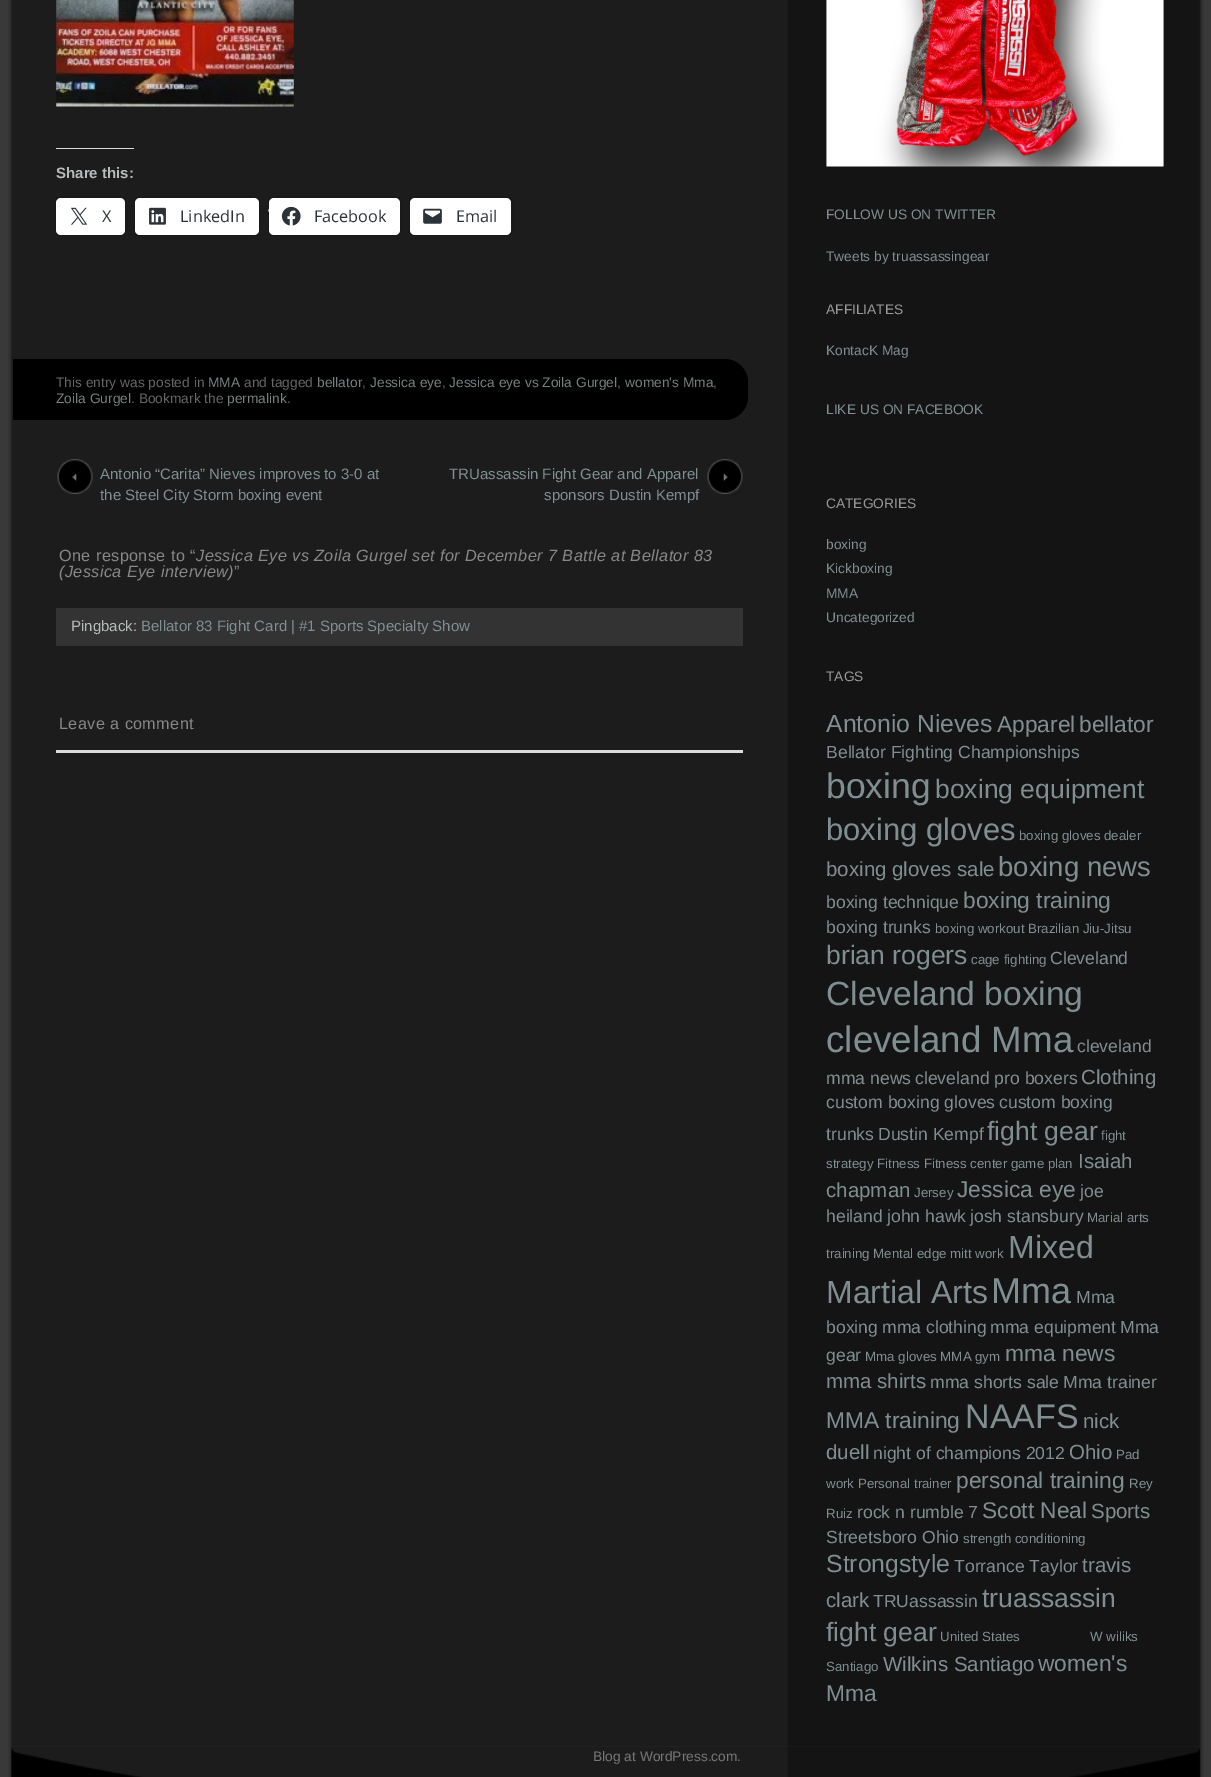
%!PS
<< /PageSize [1211 1777] /PageUsesTransparency true >> setpagedevice
/rgb { 3 { 255 div 3 1 roll } repeat setrgbcolor } def
/font { [ exch dup neg 0 0 3 -1 roll 0 0 ] selectfont } def
/alpha { dup .setfillconstantalpha .setstrokeconstantalpha } def
/roundrect { 5 dict begin { /r /h /w /y /x } { exch def } forall
  x r add y moveto x w add y 2 copy h add r arct x w add y h add x 1 index r arct
  x y h add x y r arct x y 2 copy exch w add exch r arct closepath end } def
/shadow { 12 dict begin { /a /b /q /h /w /y /x } { exch def } forall gsave /was 0 def
  9 -2 -9 { dup b mul 4 div /e exch def 1 sub .425 mul 2.718 exch exp 1 add a .99 .min exch div /now exch def
    1 1 now sub 1 was sub div sub alpha /was now def
    w h .min e 2 mul add 0 gt { x e sub y e sub w e 2 mul add h e 2 mul add
      q e add b .6 mul add w h .min 2 div e add .min 0 .max roundrect fill } if } for grestore end } def
/picture { 5 dict begin { /h /w /y /x /name } { exch def } forall
  gsave x y translate w h scale
  w h 8 [w 0 0 h 0 0] name (r) file false 3 colorimage grestore end } def
0 .pushpdf14devicefilter
0 1777 translate 1 -1 scale
4 setmiterlimit
57 57 57 rgb
0 0 1211 1777 rectfill
(img/10.rgb) 8 1746 1196 31 picture
(img/1.rgb) 8 0 1196 1747 picture
(img/2.rgb) 56 0 238 107 picture
220 220 222 rgb
56 148 78 1 rectfill
25 25 25 rgb
55.5 196.5 70 39 5.5 roundrect stroke
255 255 255 rgb
56 198 69 37 5 roundrect fill
(img/3.rgb) 70 207 18 18 picture
25 25 25 rgb
134.5 196.5 125 39 5.5 roundrect stroke
255 255 255 rgb
135 198 124 37 5 roundrect fill
(img/4.rgb) 149 207 17 18 picture
162 162 162 rgb
268 209 4 3 rectfill
0.12 alpha
0 0 0 rgb
268.5 196.5 132 39 5.5 roundrect stroke
1 alpha
269 199 131 37 5 1 0.12 shadow
255 255 255 rgb
269 198 131 37 5 roundrect fill
(img/5.rgb) 281 206 20 20 picture
25 25 25 rgb
409.5 196.5 103 39 5.5 roundrect stroke
255 255 255 rgb
410 198 101 37 5 roundrect fill
(img/6.rgb) 423 208 19 16 picture
0 0 0 rgb
13 359 moveto 725 359 lineto 737.5 359 748 369.5 748 382 curveto 748 397 lineto 748 409.5 737.5 420 725 420 curveto 13 420 lineto closepath fill
(img/7.rgb) 57 459 36 35 picture
(img/8.rgb) 707 459 36 35 picture
51 51 51 rgb
56 608 687 38 rectfill
220 220 222 rgb
56 750 687 3 rectfill
(img/9.rgb) 826 0 338 167 picture
/LiberationSans-Bold 15 font
184 186 187 rgb
56 178 moveto (Share this:) show
/OpenSans-Regular 16.25 font
44 51 56 rgb
[
  [(X) 102 222]
  [(LinkedIn) 180 222]
  [(Facebook) 314 222]
  [(Email) 456 222]
] { aload pop moveto show } forall
/LiberationSans-Regular 13.75 font
102 102 102 rgb
56 387 moveto (This entry was posted in) show
121 127 128 rgb
208 387 moveto (MMA) show
102 102 102 rgb
244 387 moveto (and tagged) show
121 127 128 rgb
317 387 moveto (bellator) show
102 102 102 rgb
362 387 moveto (,) show
121 127 128 rgb
370 387 moveto (Jessica eye) show
102 102 102 rgb
442 387 moveto (,) show
121 127 128 rgb
449 387 moveto (Jessica eye vs Zoila Gurgel) show
102 102 102 rgb
617 387 moveto (,) show
121 127 128 rgb
625 387 moveto (women's Mma) show
102 102 102 rgb
713 387 moveto (,) show
121 127 128 rgb
56 403 moveto (Zoila Gurgel) show
102 102 102 rgb
131 403 moveto (. Bookmark the) show
121 127 128 rgb
227 403 moveto (permalink) show
102 102 102 rgb
287 403 moveto (.) show
/LiberationSans-Regular 15 font
127 142 145 rgb
[
  [(Antonio “Carita” Nieves improves to 3-0 at) 100 479]
  [(the Steel City Storm boxing event) 100 500]
  [(TRUassassin Fight Gear and Apparel) 449 479]
  [(sponsors Dustin Kempf) 544 500]
] { aload pop moveto show } forall
/LiberationSans-Regular 16.25 font
136 136 136 rgb
59 561 moveto 0.4 0 (One response to “) ashow
/LiberationSans-Italic 16.25 font
196 561 moveto 0.4 0 (Jessica Eye vs Zoila Gurgel set for December 7 Battle at Bellator 83) ashow
59 577 moveto 0.4 0 (\(Jessica Eye interview\)) ashow
/LiberationSans-Regular 16.25 font
234 577 moveto 0.4 0 (”) ashow
/LiberationSans-Regular 15 font
184 186 187 rgb
71 631 moveto (Pingback:) show
127 142 145 rgb
141 631 moveto (Bellator 83 Fight Card | #1 Sports Specialty Show) show
/LiberationSans-Regular 16.25 font
136 136 136 rgb
59 729 moveto 0.4 0 (Leave a comment) ashow
/LiberationSans-Regular 13.75 font
127 142 145 rgb
826 219 moveto (FOLLOW US ON TWITTER) show
826 261 moveto (Tweets by truassassingear) show
153 153 153 rgb
826 314 moveto (AFFILIATES) show
127 142 145 rgb
826 355 moveto (KontacK Mag) show
826 414 moveto (LIKE US ON FACEBOOK) show
153 153 153 rgb
826 508 moveto (CATEGORIES) show
127 142 145 rgb
[
  [(boxing) 826 549]
  [(Kickboxing) 826 573]
  [(MMA) 826 598]
  [(Uncategorized) 826 622]
] { aload pop moveto show } forall
153 153 153 rgb
826 681 moveto (TAGS) show
/LiberationSans-Regular 24.75 font
127 142 145 rgb
826 732 moveto (Antonio Nieves) show
/LiberationSans-Regular 22.75 font
997 732 moveto (Apparel) show
1079 732 moveto (bellator) show
/LiberationSans-Regular 17.6 font
826 758 moveto (Bellator Fighting Championships) show
/LiberationSans-Regular 35.5 font
826 798 moveto (boxing) show
/LiberationSans-Regular 26.5 font
935 798 moveto (boxing equipment) show
/LiberationSans-Regular 31 font
826 840 moveto (boxing gloves) show
/LiberationSans-Regular 13.3 font
1019 840 moveto (boxing gloves dealer) show
/LiberationSans-Regular 20.5 font
826 876 moveto (boxing gloves sale) show
/LiberationSans-Regular 27.5 font
998 876 moveto (boxing news) show
/LiberationSans-Regular 17.6 font
826 908 moveto (boxing technique) show
/LiberationSans-Regular 22.75 font
963 908 moveto (boxing training) show
/LiberationSans-Regular 17.6 font
826 933 moveto (boxing trunks) show
/LiberationSans-Regular 13.3 font
935 933 moveto (boxing workout Brazilian Jiu-Jitsu) show
/LiberationSans-Regular 26.5 font
826 964 moveto (brian rogers) show
/LiberationSans-Regular 13.3 font
971 964 moveto (cage fighting) show
/LiberationSans-Regular 17.6 font
1050 964 moveto (Cleveland) show
/LiberationSans-Regular 33.5 font
826 1005 moveto (Cleveland boxing) show
/LiberationSans-Regular 36.75 font
826 1052 moveto (cleveland Mma) show
/LiberationSans-Regular 17.6 font
[
  [(cleveland) 1077 1052]
  [(mma news) 826 1084]
  [(cleveland pro boxers) 915 1084]
] { aload pop moveto show } forall
/LiberationSans-Regular 20.5 font
1081 1084 moveto (Clothing) show
/LiberationSans-Regular 17.6 font
[
  [(custom boxing gloves) 826 1108]
  [(custom boxing) 999 1108]
  [(trunks) 826 1140]
  [(Dustin Kempf) 878 1140]
] { aload pop moveto show } forall
/LiberationSans-Regular 26.5 font
987 1140 moveto (fight gear) show
/LiberationSans-Regular 13.3 font
1101 1140 moveto (fight) show
826 1168 moveto (strategy Fitness Fitness center game plan) show
/LiberationSans-Regular 20.5 font
1078 1168 moveto (Isaiah) show
826 1197 moveto (chapman) show
/LiberationSans-Regular 13.3 font
914 1197 moveto (Jersey) show
/LiberationSans-Regular 22.75 font
957 1197 moveto (Jessica eye) show
/LiberationSans-Regular 17.6 font
[
  [(joe) 1080 1197]
  [(heiland) 826 1222]
  [(john hawk) 887 1222]
  [(josh stansbury) 970 1222]
] { aload pop moveto show } forall
/LiberationSans-Regular 13.3 font
1087 1222 moveto (Marial arts) show
826 1258 moveto (training Mental edge mitt work) show
/LiberationSans-Regular 32 font
1008 1258 moveto (Mixed) show
826 1303 moveto (Martial Arts) show
/LiberationSans-Regular 36 font
991 1303 moveto (Mma) show
/LiberationSans-Regular 17.6 font
[
  [(Mma) 1076 1303]
  [(boxing) 826 1333]
  [(mma clothing) 882 1333]
  [(mma equipment) 990 1333]
  [(Mma) 1120 1333]
  [(gear) 826 1361]
] { aload pop moveto show } forall
/LiberationSans-Regular 13.3 font
865 1361 moveto (Mma gloves MMA gym) show
/LiberationSans-Regular 22.75 font
1005 1361 moveto (mma news) show
/LiberationSans-Regular 20.5 font
826 1388 moveto (mma shirts) show
/LiberationSans-Regular 17.6 font
930 1388 moveto (mma shorts sale) show
1063 1388 moveto (Mma trainer) show
/LiberationSans-Regular 22.75 font
826 1428 moveto (MMA training) show
/LiberationSans-Regular 34 font
965 1428 moveto (NAAFS) show
/LiberationSans-Regular 20.5 font
1083 1428 moveto (nick) show
826 1459 moveto (duell) show
/LiberationSans-Regular 17.6 font
873 1459 moveto (night of champions 2012) show
/LiberationSans-Regular 20.5 font
1069 1459 moveto (Ohio) show
/LiberationSans-Regular 13.3 font
1116 1459 moveto (Pad) show
826 1488 moveto (work Personal trainer) show
/LiberationSans-Regular 22.75 font
956 1488 moveto (personal training) show
/LiberationSans-Regular 13.3 font
1129 1488 moveto (Rey) show
826 1518 moveto (Ruiz) show
/LiberationSans-Regular 17.6 font
857 1518 moveto (rock n rumble 7) show
/LiberationSans-Regular 22.75 font
982 1518 moveto (Scott Neal) show
/LiberationSans-Regular 20.5 font
1091 1518 moveto (Sports) show
/LiberationSans-Regular 17.6 font
826 1543 moveto (Streetsboro Ohio) show
/LiberationSans-Regular 13.3 font
963 1543 moveto (strength conditioning) show
/LiberationSans-Regular 24.75 font
826 1572 moveto (Strongstyle) show
/LiberationSans-Regular 17.6 font
954 1572 moveto (Torrance Taylor) show
/LiberationSans-Regular 20.5 font
1082 1572 moveto (travis) show
826 1607 moveto (clark) show
/LiberationSans-Regular 17.6 font
873 1607 moveto (TRUassassin) show
/LiberationSans-Regular 26.5 font
982 1607 moveto (truassassin) show
826 1641 moveto (fight gear) show
/LiberationSans-Regular 13.3 font
940 1641 moveto (United States                   W wiliks) show
826 1671 moveto (Santiago) show
/LiberationSans-Regular 20.5 font
883 1671 moveto (Wilkins Santiago) show
/LiberationSans-Regular 22.75 font
1038 1671 moveto (women's) show
826 1701 moveto (Mma) show
/LiberationSans-Regular 13.75 font
119 119 119 rgb
593 1761 moveto (Blog at WordPress.com.) show
.poppdf14devicefilter showpage
